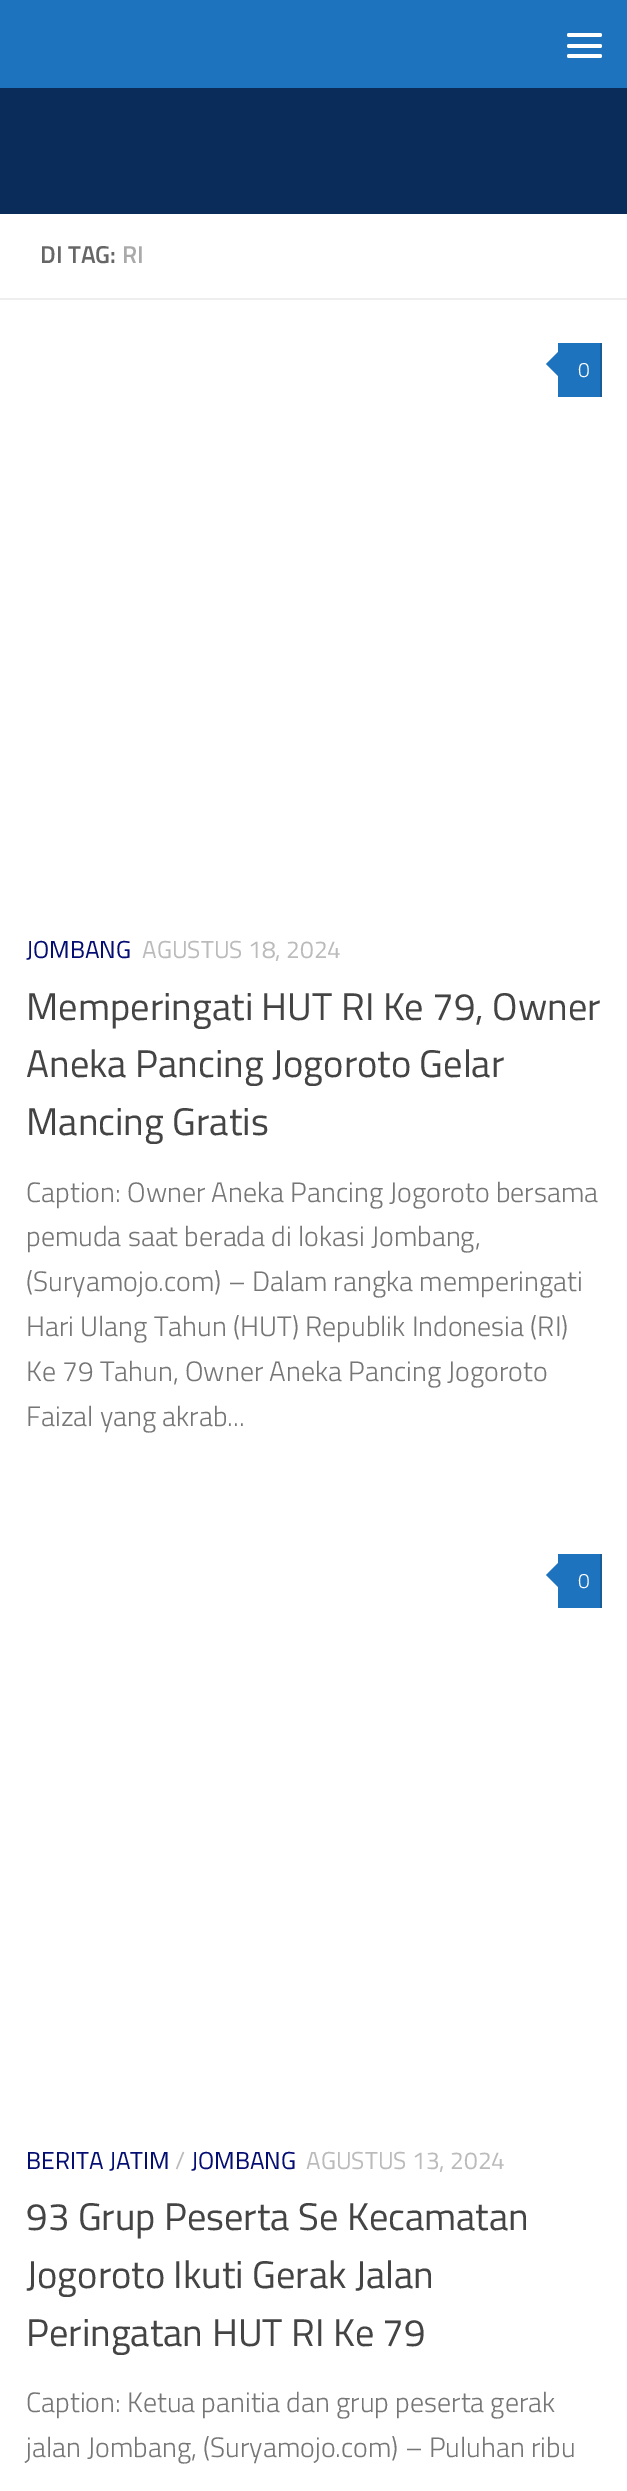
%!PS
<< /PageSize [627 2491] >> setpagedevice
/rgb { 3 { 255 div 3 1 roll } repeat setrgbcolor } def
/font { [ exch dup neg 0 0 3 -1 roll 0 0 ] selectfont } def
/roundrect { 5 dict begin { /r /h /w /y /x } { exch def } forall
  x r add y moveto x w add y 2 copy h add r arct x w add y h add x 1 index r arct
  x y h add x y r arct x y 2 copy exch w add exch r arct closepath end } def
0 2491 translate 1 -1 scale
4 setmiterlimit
255 255 255 rgb
0 0 627 2491 rectfill
9 44 91 rgb
0 88 627 126 rectfill
30 115 190 rgb
0 0 627 88 rectfill
255 255 255 rgb
567 33 35 4 2 roundrect fill
567 44 35 4 2 roundrect fill
567 54 35 4 2 roundrect fill
[
  [0 298 627 2 238 238 238]
  [558 343 42 54 30 115 190]
  [600 343 2 54 24 92 152]
] { aload pop rgb rectfill } forall
30 115 190 rgb
562 348 moveto 562 380 lineto 546 364 lineto closepath fill
558 1554 42 54 rectfill
24 92 152 rgb
600 1554 2 54 rectfill
30 115 190 rgb
562 1559 moveto 562 1591 lineto 546 1575 lineto closepath fill
/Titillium-SemiBold 24.5 font
102 102 102 rgb
40 263 moveto (DI TAG:) show
170 170 170 rgb
122 263 moveto (RI) show
/Titillium-Light 21 font
255 255 255 rgb
578 377 moveto (0) show
/Titillium-Regular 24.5 font
4 13 114 rgb
26 958 moveto (JOMBANG) show
187 187 187 rgb
142 958 moveto (AGUSTUS 18, 2024) show
/Titillium-Regular 38.5 font
68 68 68 rgb
[
  [(Memperingati HUT RI Ke 79, Owner) 26 1020]
  [(Aneka Pancing Jogoroto Gelar) 26 1077]
  [(Mancing Gratis) 26 1135]
] { aload pop moveto show } forall
/Titillium-Light 28 font
118 118 118 rgb
[
  [(Caption: Owner Aneka Pancing Jogoroto bersama) 26 1202]
  [(pemuda saat berada di lokasi Jombang,) 26 1246]
  [(\(Suryamojo.com\) – Dalam rangka memperingati) 26 1291]
  [(Hari Ulang Tahun \(HUT\) Republik Indonesia \(RI\)) 26 1336]
  [(Ke 79 Tahun, Owner Aneka Pancing Jogoroto) 26 1381]
  [(Faizal yang akrab...) 26 1426]
] { aload pop moveto show } forall
/Titillium-Light 21 font
255 255 255 rgb
578 1588 moveto (0) show
/Titillium-Regular 24.5 font
4 13 114 rgb
26 2169 moveto (BERITA JATIM) show
187 187 187 rgb
175 2169 moveto (/) show
4 13 114 rgb
191 2169 moveto (JOMBANG) show
187 187 187 rgb
306 2169 moveto (AGUSTUS 13, 2024) show
/Titillium-Regular 38.5 font
68 68 68 rgb
[
  [(93 Grup Peserta Se Kecamatan) 26 2230]
  [(Jogoroto Ikuti Gerak Jalan) 26 2288]
  [(Peringatan HUT RI Ke 79) 26 2346]
] { aload pop moveto show } forall
/Titillium-Light 28 font
118 118 118 rgb
26 2412 moveto (Caption: Ketua panitia dan grup peserta gerak) show
26 2457 moveto (jalan Jombang, \(Suryamojo.com\) – Puluhan ribu) show
showpage
